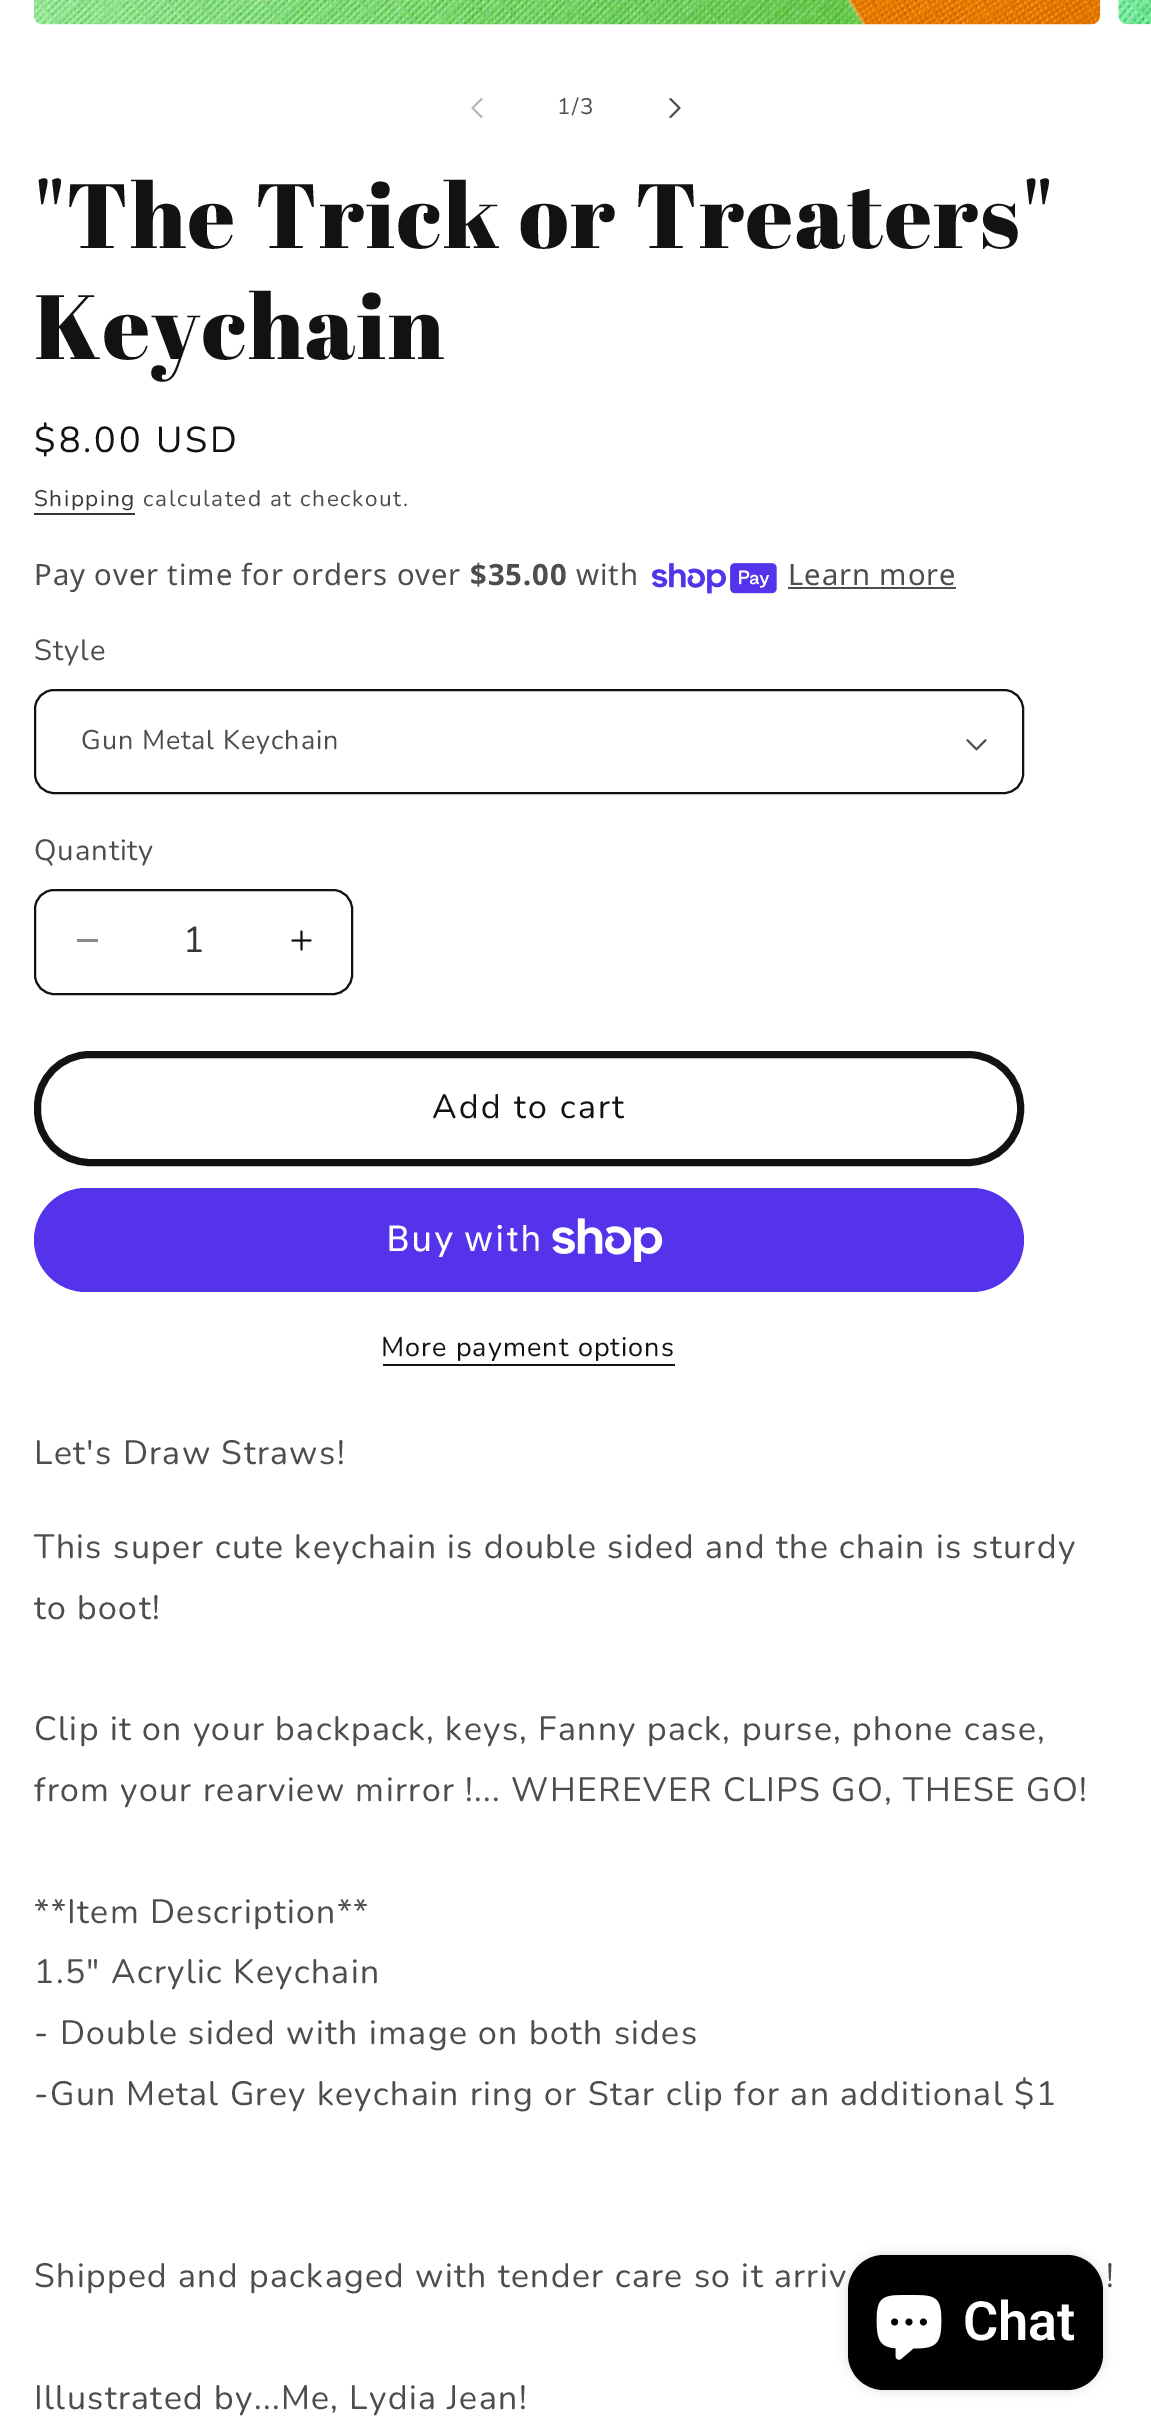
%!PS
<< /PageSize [1151 2435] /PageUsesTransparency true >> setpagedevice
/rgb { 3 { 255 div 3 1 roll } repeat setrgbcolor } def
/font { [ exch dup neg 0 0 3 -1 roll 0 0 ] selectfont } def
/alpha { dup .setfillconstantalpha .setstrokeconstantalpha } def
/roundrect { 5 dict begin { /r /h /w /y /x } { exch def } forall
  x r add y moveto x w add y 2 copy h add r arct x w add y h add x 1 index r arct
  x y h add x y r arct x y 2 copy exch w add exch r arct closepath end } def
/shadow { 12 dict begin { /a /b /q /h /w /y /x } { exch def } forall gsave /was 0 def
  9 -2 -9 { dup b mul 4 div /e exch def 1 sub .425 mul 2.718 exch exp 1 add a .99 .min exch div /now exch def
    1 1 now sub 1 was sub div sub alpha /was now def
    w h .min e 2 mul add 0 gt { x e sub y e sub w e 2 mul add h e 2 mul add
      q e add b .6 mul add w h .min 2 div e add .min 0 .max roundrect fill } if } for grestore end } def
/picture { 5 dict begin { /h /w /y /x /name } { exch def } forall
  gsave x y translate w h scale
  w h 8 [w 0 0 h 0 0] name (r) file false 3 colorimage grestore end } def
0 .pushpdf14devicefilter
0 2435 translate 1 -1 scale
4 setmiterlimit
255 255 255 rgb
0 0 1151 2435 rectfill
(img/1.rgb) 33 0 1068 25 picture
(img/2.rgb) 1118 0 33 25 picture
(img/3.rgb) 471 98 12 21 picture
(img/4.rgb) 669 97 12 22 picture
54 54 54 rgb
34 513 101 2 rectfill
(img/5.rgb) 652 563 125 31 picture
77 77 77 rgb
788 587 168 2 rectfill
(img/6.rgb) 966 739 21 12 picture
18 18 18 rgb
2 setlinewidth
35 690 988 103 19 roundrect stroke
137 137 137 rgb
77 939 21 3 rectfill
(img/7.rgb) 291 930 21 21 picture
18 18 18 rgb
35 890 317 104 19 roundrect stroke
7 setlinewidth
37.5 1054.5 983 108 52.5 roundrect stroke
84 51 235 rgb
34 1188 990 104 52 roundrect fill
(img/8.rgb) 552 1218 111 44 picture
18 18 18 rgb
383 1364 292 2 rectfill
0 0 0 rgb
848 2255 255 135 36 5.5 0.15 shadow
848 2255 255 135 36 roundrect fill
(img/9.rgb) 876 2295 66 65 picture
/Nunito-Regular 22.5 font
77 77 77 rgb
557 114 moveto 1.6 0 (1/3) ashow
/AbrilFatface-Regular 91.1 font
18 18 18 rgb
34 248 moveto 1.8 0 ("The Trick or Treaters") ashow
34 359 moveto 1.8 0 (Keychain) ashow
/Nunito-Regular 36 font
34 452 moveto 3 0 ($8.00 USD) ashow
/Nunito-Regular 22.5 font
54 54 54 rgb
34 506 moveto 1.6 0 (Shipping) ashow
77 77 77 rgb
143 506 moveto 1.6 0 (calculated at checkout.) ashow
/NotoSans-Regular 29.25 font
34 585 moveto 0.9 0 (Pay over time for orders over) ashow
/NotoSans-Bold 29.25 font
470 585 moveto 0.9 0 ($35.00) ashow
/NotoSans-Regular 29.25 font
576 585 moveto 0.9 0 (with) ashow
788 585 moveto 0.9 0 (Learn more) ashow
/Nunito-Regular 29.25 font
34 660 moveto 0.9 0 (Style) ashow
/Nunito-Regular 27 font
81 749 moveto 0.9 0 (Gun Metal Keychain) ashow
/Nunito-Regular 29.25 font
34 860 moveto 0.9 0 (Quantity) ashow
/Nunito-Regular 36 font
54 54 54 rgb
183 952 moveto (1) show
/Nunito-Regular 33.75 font
18 18 18 rgb
432 1118 moveto 2.25 0 (Add to cart) ashow
/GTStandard-Regular 36 font
255 255 255 rgb
386 1251 moveto 1.35 0 (Buy with) ashow
/Nunito-Regular 27 font
18 18 18 rgb
381 1356 moveto 1.1 0 (More payment options) ashow
/Nunito-Regular 33.75 font
77 77 77 rgb
34 1464 moveto 1.35 0 (Let's Draw Straws!) ashow
34 1558 moveto 1.35 0 (This super cute keychain is double sided and the chain is sturdy) ashow
34 1619 moveto 1.35 0 (to boot!) ashow
34 1740 moveto 1.35 0 (Clip it on your backpack, keys, Fanny pack, purse, phone case,) ashow
34 1801 moveto 1.35 0 (from your rearview mirror !... WHEREVER CLIPS GO, THESE GO!) ashow
34 1923 moveto 1.35 0 (**Item Description**) ashow
34 1983 moveto 1.35 0 (1.5" Acrylic Keychain) ashow
34 2044 moveto 1.35 0 (- Double sided with image on both sides) ashow
34 2105 moveto 1.35 0 (-Gun Metal Grey keychain ring or Star clip for an additional $1) ashow
34 2287 moveto 1.35 0 (Shipped and packaged with tender care so it arriv) ashow
1106 2287 moveto 1.35 0 (!) ashow
34 2409 moveto 1.35 0 (Illustrated by...Me, Lydia Jean!) ashow
/Roboto-SemiBold 54 font
255 255 255 rgb
963 2340 moveto (Chat) show
.poppdf14devicefilter showpage
